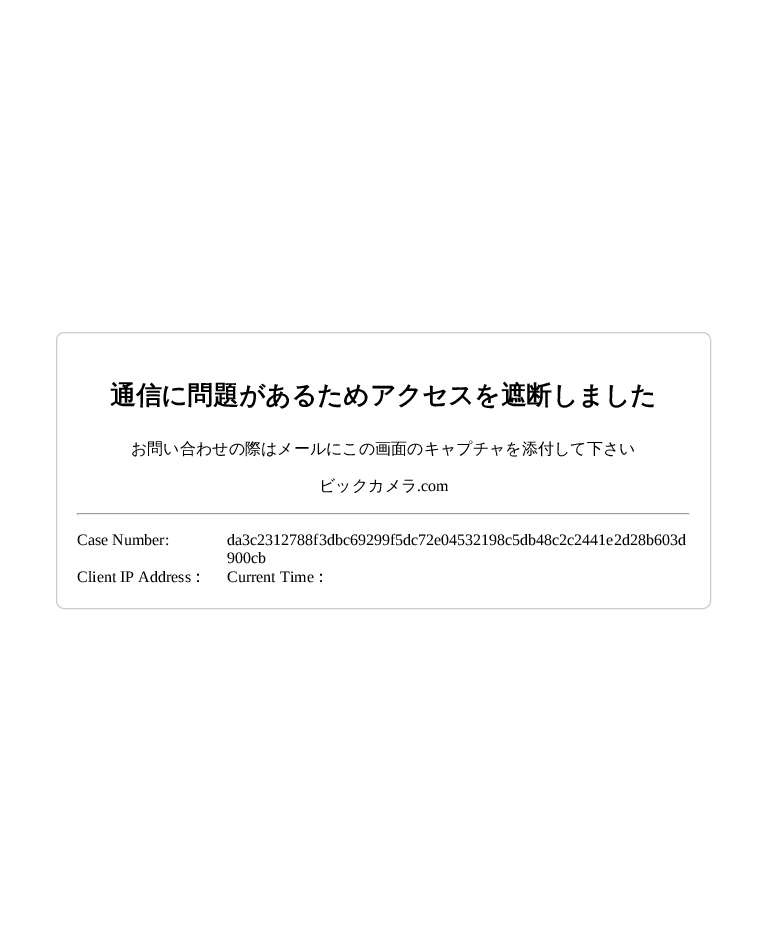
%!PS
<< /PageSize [767 941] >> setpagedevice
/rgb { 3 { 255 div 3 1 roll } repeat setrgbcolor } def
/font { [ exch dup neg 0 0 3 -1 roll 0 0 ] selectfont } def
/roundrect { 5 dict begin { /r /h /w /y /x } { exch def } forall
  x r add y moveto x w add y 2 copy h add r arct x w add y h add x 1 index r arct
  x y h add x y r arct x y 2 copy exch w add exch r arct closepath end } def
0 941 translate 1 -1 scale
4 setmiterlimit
255 255 255 rgb
0 0 767 941 rectfill
204 204 204 rgb
56.5 332.5 654 276 7.5 roundrect stroke
[
  [77 513 613 1 159 159 159]
  [689 513 1 2 238 238 238]
  [77 514 613 1 238 238 238]
  [77 513 1 2 159 159 159]
] { aload pop rgb rectfill } forall
/WenQuanYiZenHei-Bold 25.6 font
0 0 0 rgb
110 404 moveto (通信に問題があるためアクセスを遮断しました) show
/WenQuanYiZenHei-Medium 16 font
131 454 moveto (お問い合わせの際はメールにこの画面のキャプチャを添付して下さい) show
319 491 moveto (ビックカメラ) show
/LiberationSerif-Regular 16 font
[
  [(.com) 417 491]
  [(Case Number:) 77 545]
  [(da3c2312788f3dbc69299f5dc72e04532198c5db48c2c2441e2d28b603d) 227 545]
  [(900cb) 227 563]
  [(Client IP Address) 77 582]
] { aload pop moveto show } forall
/WenQuanYiZenHei-Medium 16 font
190 582 moveto (：) show
/LiberationSerif-Regular 16 font
227 582 moveto (Current Time) show
/WenQuanYiZenHei-Medium 16 font
313 582 moveto (：) show
showpage
